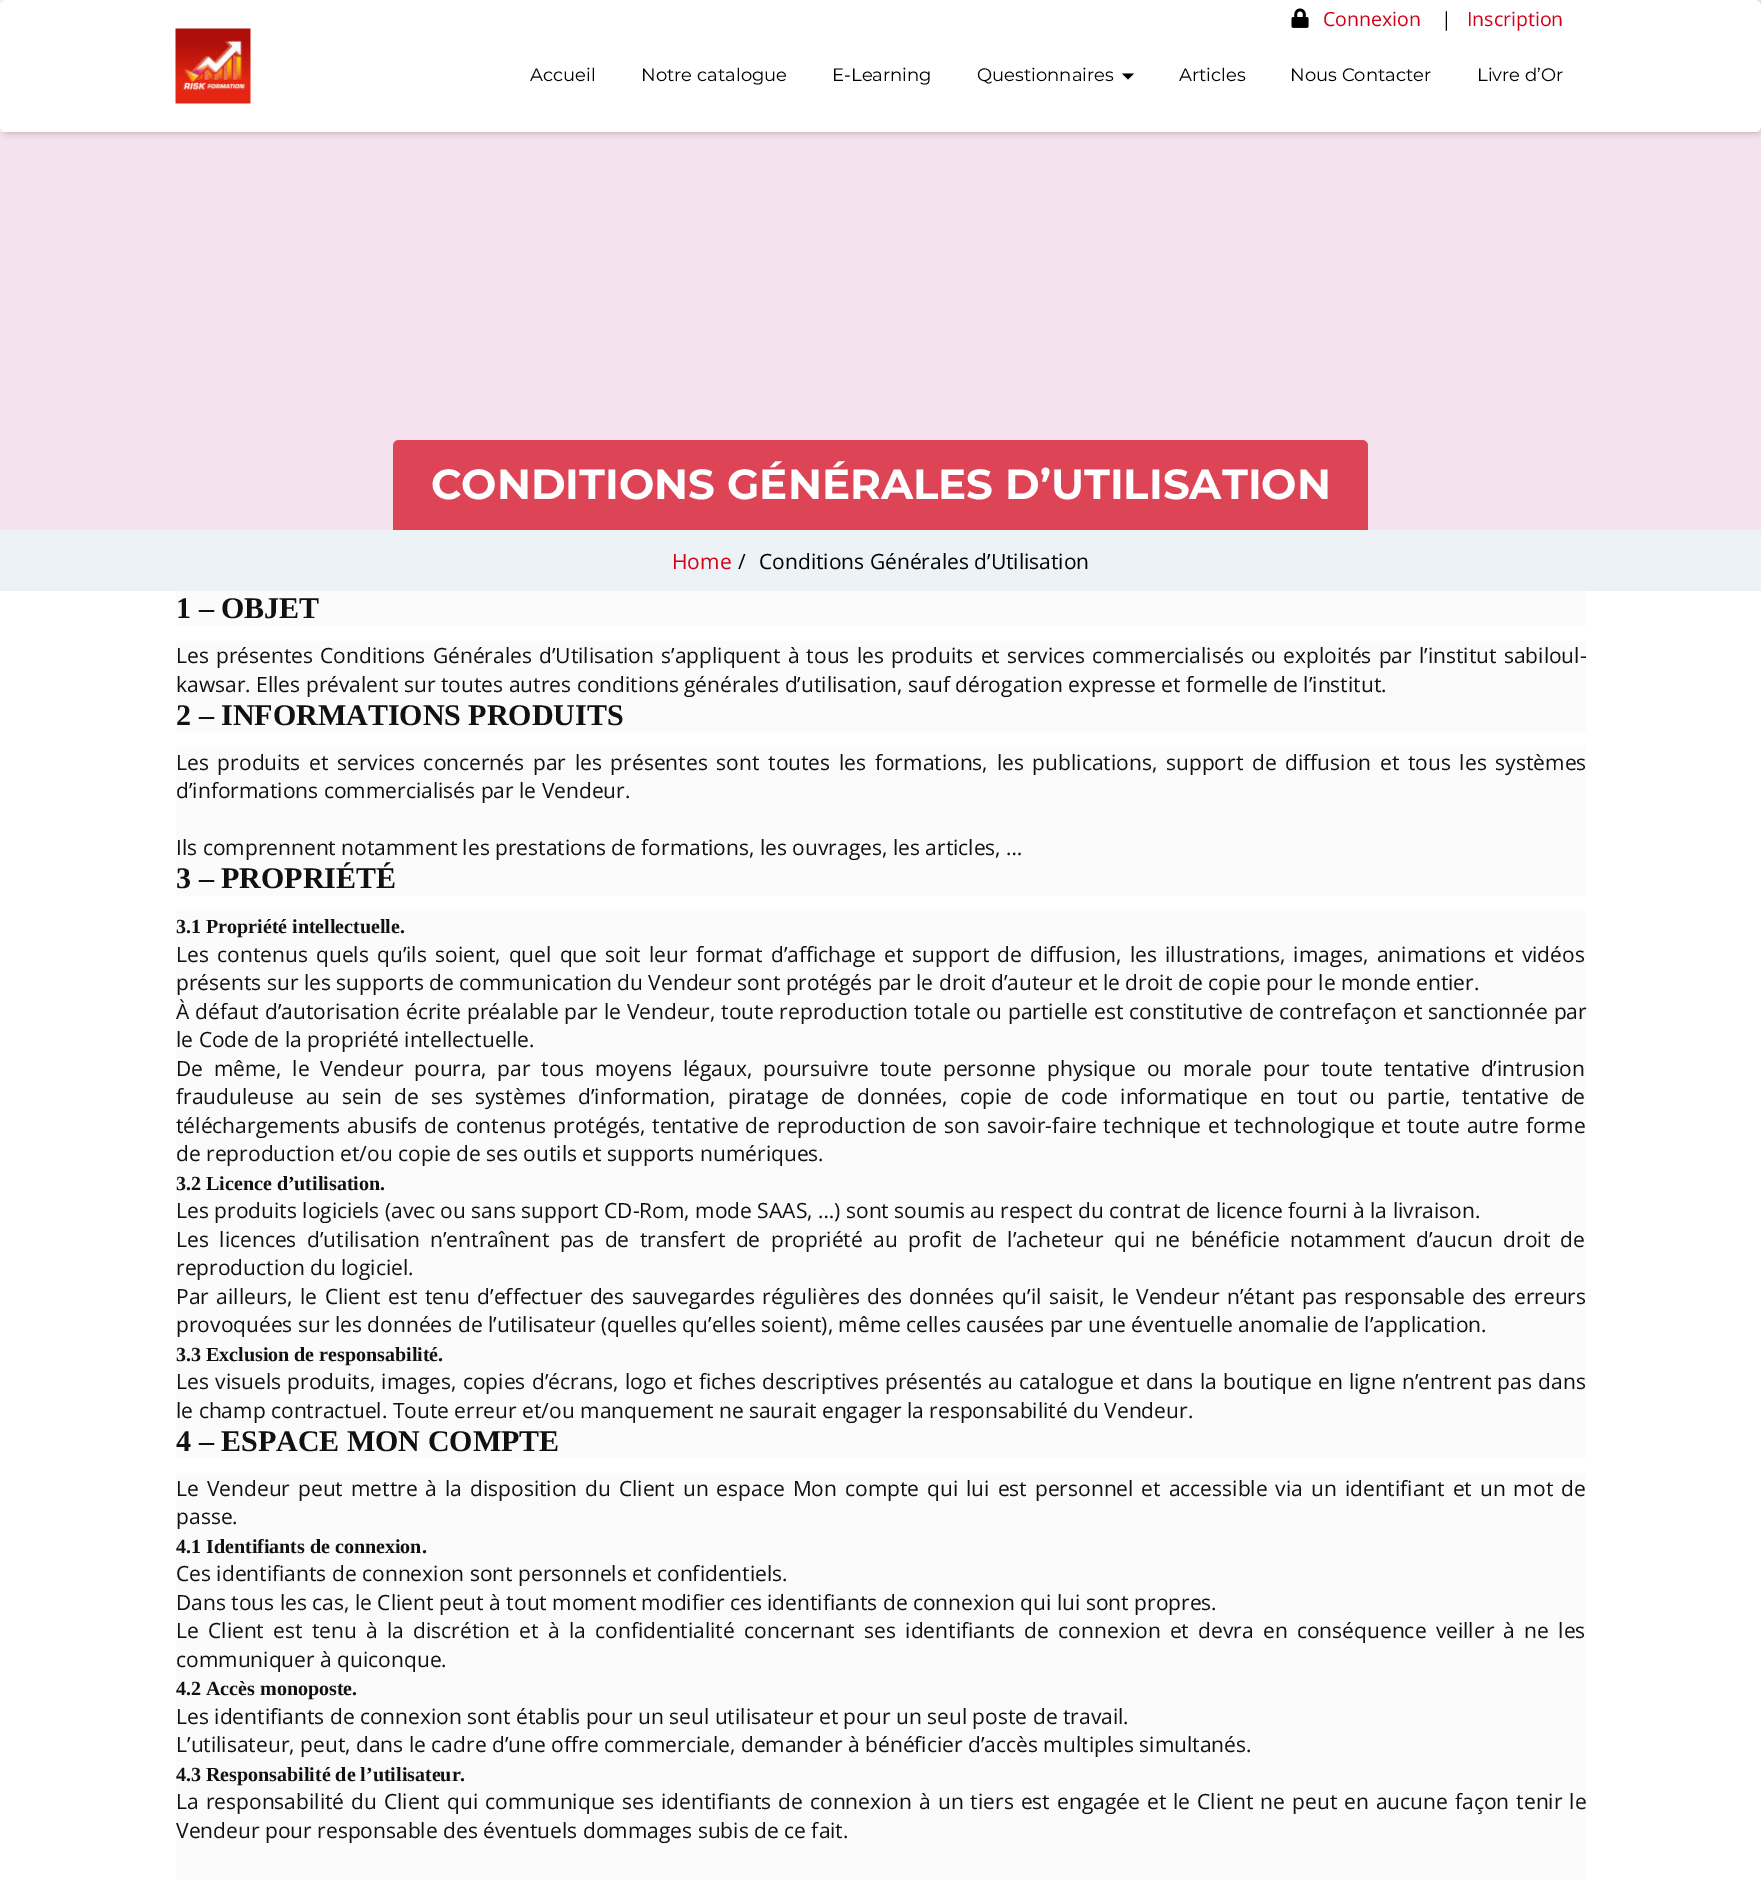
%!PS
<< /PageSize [1761 1880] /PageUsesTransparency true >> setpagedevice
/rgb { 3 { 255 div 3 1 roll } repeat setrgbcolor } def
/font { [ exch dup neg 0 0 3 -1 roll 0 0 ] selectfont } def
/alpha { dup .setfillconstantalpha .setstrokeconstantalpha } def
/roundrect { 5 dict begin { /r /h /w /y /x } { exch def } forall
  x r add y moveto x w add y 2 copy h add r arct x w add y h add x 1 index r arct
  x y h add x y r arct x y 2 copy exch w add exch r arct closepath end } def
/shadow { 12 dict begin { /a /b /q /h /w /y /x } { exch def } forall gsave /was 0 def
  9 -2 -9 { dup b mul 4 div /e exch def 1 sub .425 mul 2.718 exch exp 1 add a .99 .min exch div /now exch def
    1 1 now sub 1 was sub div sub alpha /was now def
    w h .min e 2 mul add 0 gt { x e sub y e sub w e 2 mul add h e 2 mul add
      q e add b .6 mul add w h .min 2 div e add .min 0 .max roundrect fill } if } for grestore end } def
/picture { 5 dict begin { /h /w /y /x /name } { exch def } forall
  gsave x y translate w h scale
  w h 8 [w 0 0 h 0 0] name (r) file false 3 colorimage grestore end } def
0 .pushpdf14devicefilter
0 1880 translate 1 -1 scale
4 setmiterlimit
255 255 255 rgb
0 0 1761 1880 rectfill
0 0 0 rgb
2 0 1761 132 6 4 0.3 shadow
255 255 255 rgb
0 0 1761 132 6 roundrect fill
(img/1.rgb) 175 28 76 76 picture
(img/2.rgb) 1291 8 18 20 picture
0 0 0 rgb
1122 73.5 moveto 1134 73.5 lineto 1128 79.5 lineto closepath fill
0.12 alpha
163 22 117 rgb
0 132 1761 398 rectfill
1 alpha
221 68 86 rgb
399 440 moveto 1362 440 lineto 1365.5 440 1368 442.5 1368 446 curveto 1368 530 lineto 393 530 lineto 393 446 lineto 393 442.5 395.5 440 399 440 curveto closepath fill
[
  [0 530 1761 61 237 242 246]
  [176 591 1410 35 251 251 251]
  [176 641 1410 91 251 251 251]
  [176 747 1410 149 251 251 251]
  [176 911 1410 547 251 251 251]
  [176 1473 1410 407 251 251 251]
] { aload pop rgb rectfill } forall
/OpenSans-Regular 19.5 font
211 0 21 rgb
1323 26 moveto (Connexion) show
0 0 0 rgb
1441 26 moveto (|) show
211 0 21 rgb
1467 26 moveto (Inscription) show
/Montserrat-Regular 18 font
0 0 0 rgb
[
  [(Accueil) 530 81]
  [(Notre catalogue) 641 81]
  [(E-Learning) 832 81]
  [(Questionnaires) 977 81]
  [(Articles) 1179 81]
  [(Nous Contacter) 1290 81]
  [(Livre d’Or) 1477 81]
] { aload pop moveto show } forall
/Montserrat-Bold 42 font
255 255 255 rgb
431 499 moveto (CONDITIONS GÉNÉRALES D’UTILISATION) show
/OpenSans-Regular 21 font
211 0 21 rgb
672 569 moveto (Home) show
0 0 0 rgb
738 569 moveto (/) show
759 569 moveto (Conditions Générales d’Utilisation) show
/LiberationSerif-Bold 30 font
17 17 17 rgb
176 618 moveto (1 – OBJET) show
/OpenSans-Regular 21 font
176 663 moveto 1.7 0 32 (Les présentes Conditions Générales d’Utilisation s’appliquent à tous les produits et services commercialisés ou exploités par l’institut sabiloul-) widthshow
176 692 moveto (kawsar. Elles prévalent sur toutes autres conditions générales d’utilisation, sauf dérogation expresse et formelle de l’institut.) show
/LiberationSerif-Bold 30 font
176 725 moveto (2 – INFORMATIONS PRODUITS) show
/OpenSans-Regular 21 font
176 770 moveto 3.25 0 32 (Les produits et services concernés par les présentes sont toutes les formations, les publications, support de diffusion et tous les systèmes) widthshow
176 798 moveto (d’informations commercialisés par le Vendeur.) show
176 855 moveto (Ils comprennent notamment les prestations de formations, les ouvrages, les articles, …) show
/LiberationSerif-Bold 30 font
176 888 moveto (3 – PROPRIÉTÉ) show
/LiberationSerif-Bold 20 font
176 933 moveto (3.1 Propriété intellectuelle.) show
/OpenSans-Regular 21 font
176 962 moveto 2.75 0 32 (Les contenus quels qu’ils soient, quel que soit leur format d’affichage et support de diffusion, les illustrations, images, animations et vidéos) widthshow
176 990 moveto (présents sur les supports de communication du Vendeur sont protégés par le droit d’auteur et le droit de copie pour le monde entier.) show
176 1019 moveto 0.5 0 32 (À défaut d’autorisation écrite préalable par le Vendeur, toute reproduction totale ou partielle est constitutive de contrefaçon et sanctionnée par) widthshow
176 1047 moveto (le Code de la propriété intellectuelle.) show
176 1076 moveto 5.25 0 32 (De même, le Vendeur pourra, par tous moyens légaux, poursuivre toute personne physique ou morale pour toute tentative d’intrusion) widthshow
176 1104 moveto 6.6 0 32 (frauduleuse au sein de ses systèmes d’information, piratage de données, copie de code informatique en tout ou partie, tentative de) widthshow
176 1133 moveto 1.5 0 32 (téléchargements abusifs de contenus protégés, tentative de reproduction de son savoir-faire technique et technologique et toute autre forme) widthshow
176 1161 moveto (de reproduction et/ou copie de ses outils et supports numériques.) show
/LiberationSerif-Bold 20 font
176 1190 moveto (3.2 Licence d’utilisation.) show
/OpenSans-Regular 21 font
176 1218 moveto (Les produits logiciels \(avec ou sans support CD-Rom, mode SAAS, …\) sont soumis au respect du contrat de licence fourni à la livraison.) show
176 1247 moveto 5 0 32 (Les licences d’utilisation n’entraînent pas de transfert de propriété au profit de l’acheteur qui ne bénéficie notamment d’aucun droit de) widthshow
176 1275 moveto (reproduction du logiciel.) show
176 1304 moveto 2 0 32 (Par ailleurs, le Client est tenu d’effectuer des sauvegardes régulières des données qu’il saisit, le Vendeur n’étant pas responsable des erreurs) widthshow
176 1332 moveto (provoquées sur les données de l’utilisateur \(quelles qu’elles soient\), même celles causées par une éventuelle anomalie de l’application.) show
/LiberationSerif-Bold 20 font
176 1361 moveto (3.3 Exclusion de responsabilité.) show
/OpenSans-Regular 21 font
176 1389 moveto 0.85 0 32 (Les visuels produits, images, copies d’écrans, logo et fiches descriptives présentés au catalogue et dans la boutique en ligne n’entrent pas dans) widthshow
176 1418 moveto (le champ contractuel. Toute erreur et/ou manquement ne saurait engager la responsabilité du Vendeur.) show
/LiberationSerif-Bold 30 font
176 1451 moveto (4 – ESPACE MON COMPTE) show
/OpenSans-Regular 21 font
176 1496 moveto 2.5 0 32 (Le Vendeur peut mettre à la disposition du Client un espace Mon compte qui lui est personnel et accessible via un identifiant et un mot de) widthshow
176 1524 moveto (passe.) show
gsave
176 1530 1410 29 rectclip
/LiberationSerif-Bold 20 font
176 1553 moveto (4.1 Identifiants de connexion.) show
grestore
176 1581 moveto (Ces identifiants de connexion sont personnels et confidentiels.) show
176 1610 moveto (Dans tous les cas, le Client peut à tout moment modifier ces identifiants de connexion qui lui sont propres.) show
176 1638 moveto 3.8 0 32 (Le Client est tenu à la discrétion et à la confidentialité concernant ses identifiants de connexion et devra en conséquence veiller à ne les) widthshow
176 1667 moveto (communiquer à quiconque.) show
gsave
176 1673 1410 28 rectclip
/LiberationSerif-Bold 20 font
176 1695 moveto (4.2 Accès monoposte.) show
grestore
176 1724 moveto (Les identifiants de connexion sont établis pour un seul utilisateur et pour un seul poste de travail.) show
176 1752 moveto (L’utilisateur, peut, dans le cadre d’une offre commerciale, demander à bénéficier d’accès multiples simultanés.) show
gsave
176 1758 1410 29 rectclip
/LiberationSerif-Bold 20 font
176 1781 moveto (4.3 Responsabilité de l’utilisateur.) show
grestore
176 1809 moveto 1.6 0 32 (La responsabilité du Client qui communique ses identifiants de connexion à un tiers est engagée et le Client ne peut en aucune façon tenir le) widthshow
176 1838 moveto (Vendeur pour responsable des éventuels dommages subis de ce fait.) show
.poppdf14devicefilter showpage
